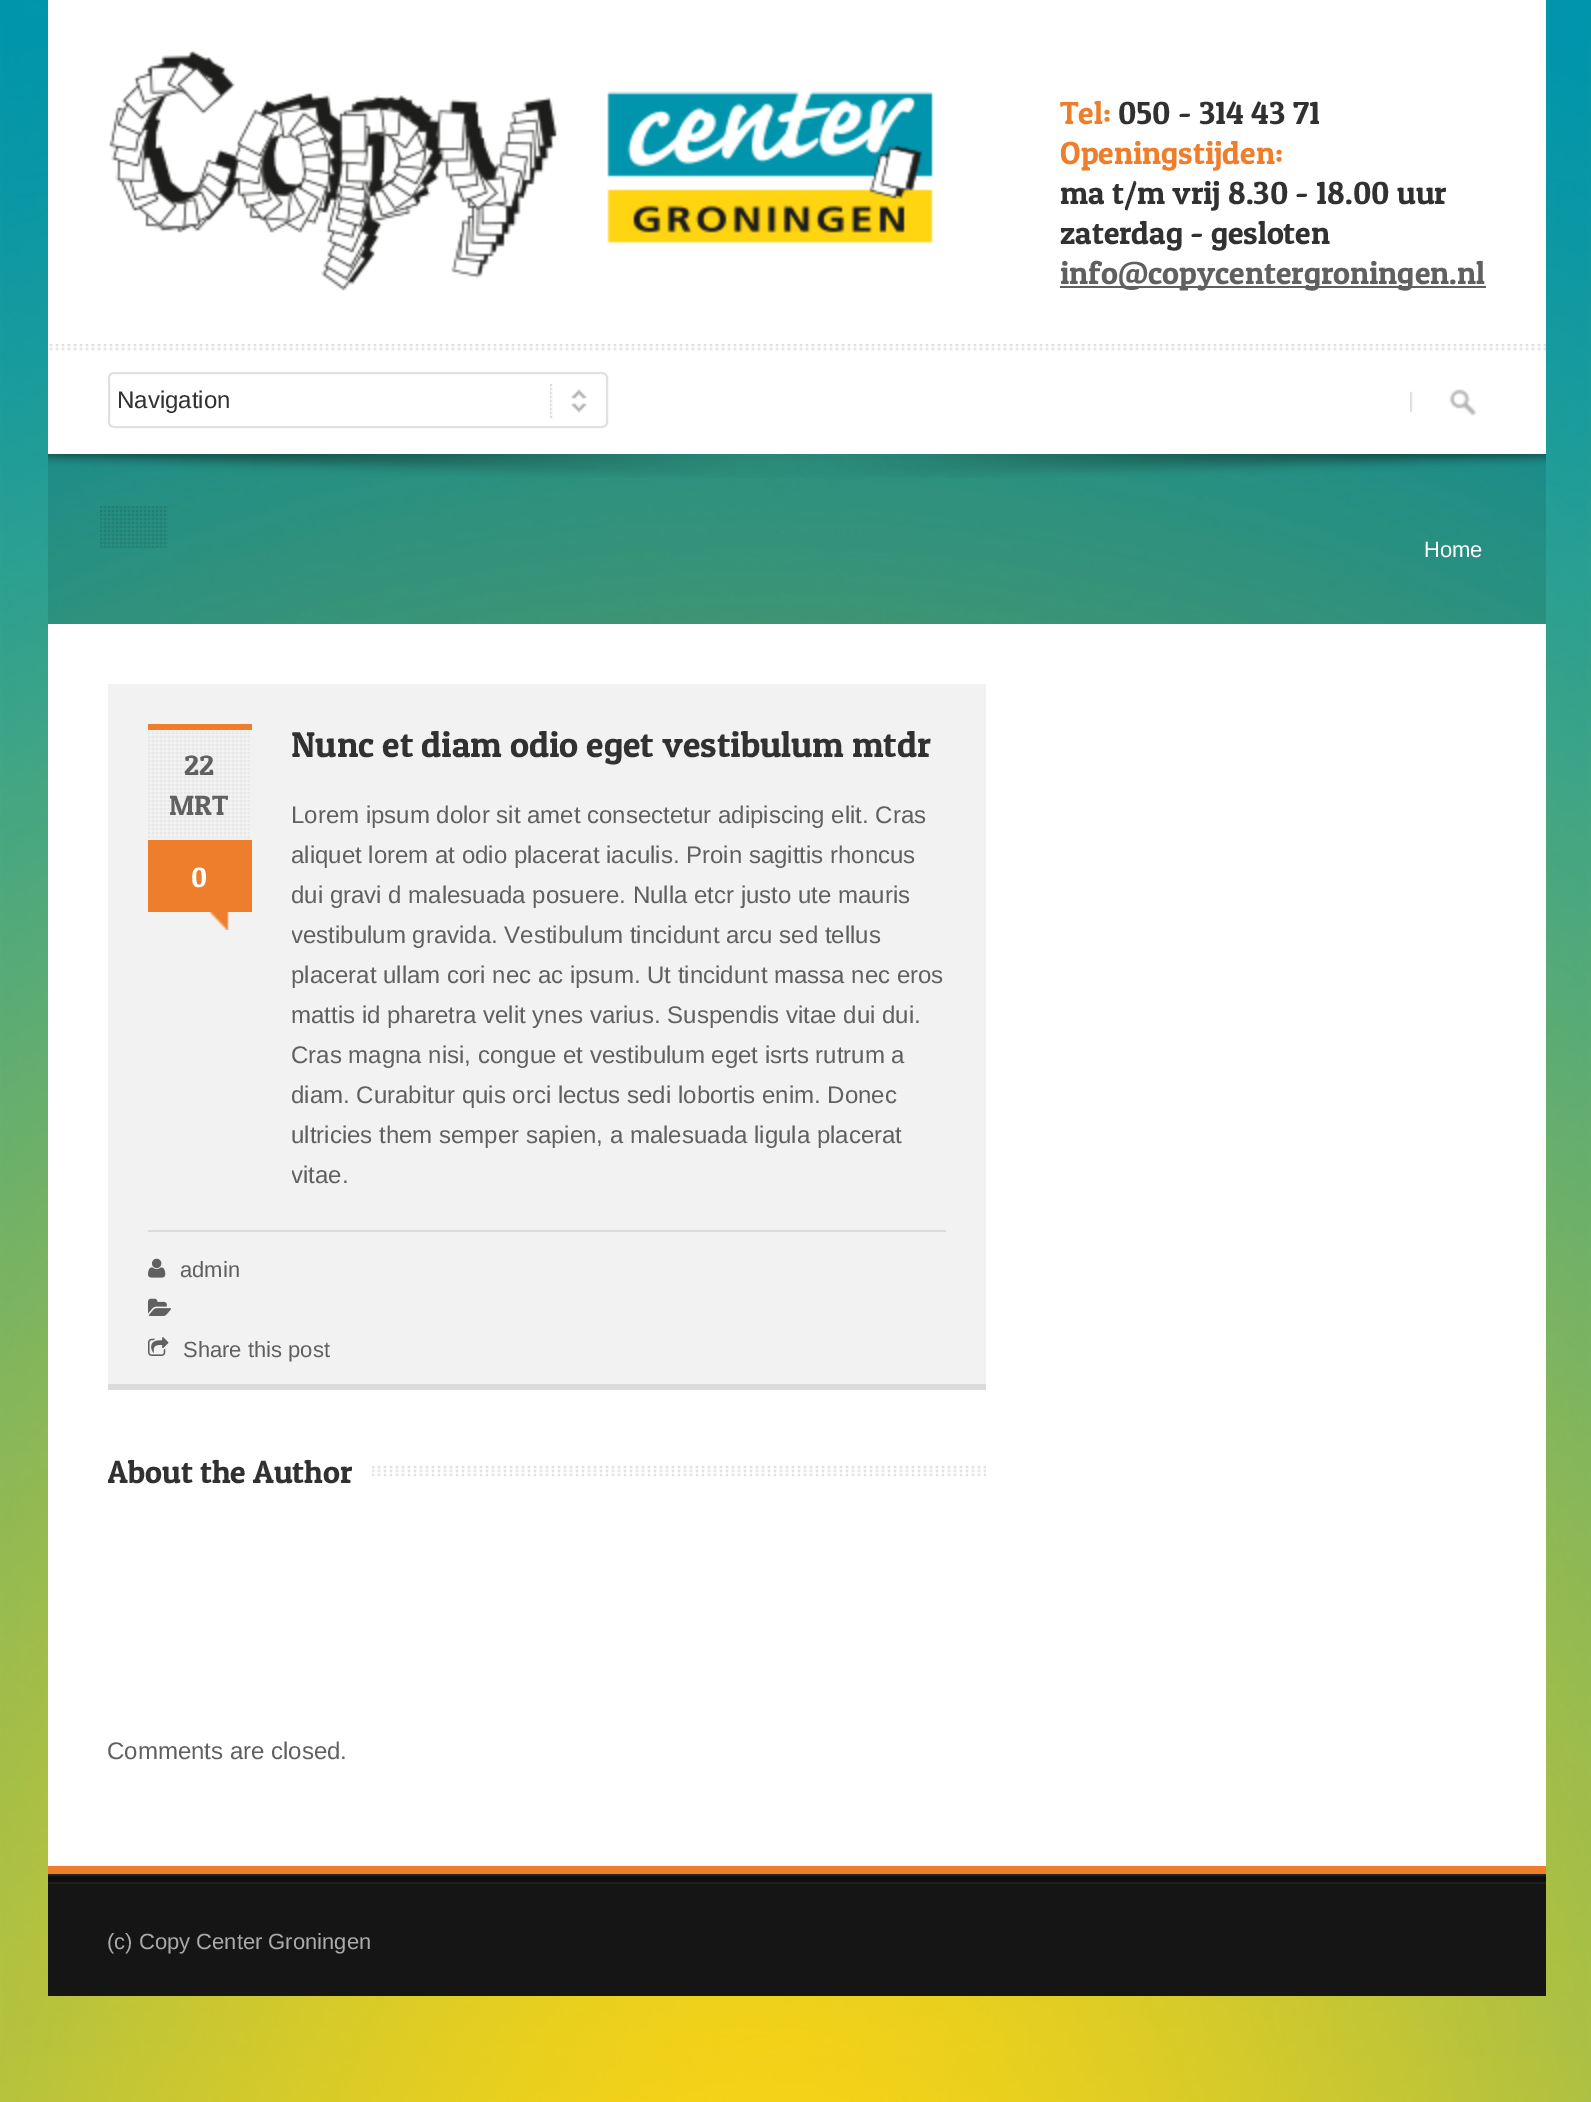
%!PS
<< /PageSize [1591 2102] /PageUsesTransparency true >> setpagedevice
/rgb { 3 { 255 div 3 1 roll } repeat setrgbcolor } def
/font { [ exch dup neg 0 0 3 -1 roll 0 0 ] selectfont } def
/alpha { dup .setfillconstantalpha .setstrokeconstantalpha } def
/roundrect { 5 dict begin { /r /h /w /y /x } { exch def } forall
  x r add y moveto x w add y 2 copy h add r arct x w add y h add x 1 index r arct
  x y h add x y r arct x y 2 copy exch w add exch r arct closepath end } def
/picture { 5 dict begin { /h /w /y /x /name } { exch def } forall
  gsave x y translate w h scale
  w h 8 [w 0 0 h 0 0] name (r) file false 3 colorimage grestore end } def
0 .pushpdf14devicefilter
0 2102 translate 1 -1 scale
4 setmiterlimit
255 255 255 rgb
0 0 1591 2102 rectfill
(img/1.rgb) 0 0 1591 2102 picture
(img/2.rgb) 3 17 1584 2038 picture
48 0 1498 454 rectfill
(img/3.rgb) 109 51 824 240 picture
96 96 96 rgb
1060 286 426 2 rectfill
(img/4.rgb) 49 344 1497 7 picture
(img/5.rgb) 550 384 37 34 picture
225 225 225 rgb
2 setlinewidth
109 373 498 54 5 roundrect stroke
(img/6.rgb) 1410 389 67 27 picture
0.1 alpha
0 0 0 rgb
48 454 1498 170 rectfill
1 alpha
(img/7.rgb) 48 454 1498 24 picture
(img/8.rgb) 100 506 68 42 picture
[
  [48 624 1498 1242 255 255 255]
  [108 684 878 700 242 242 242]
  [108 1384 878 6 219 219 219]
] { aload pop rgb rectfill } forall
(img/9.rgb) 148 730 102 108 picture
238 126 44 rgb
148 724 104 6 rectfill
148 840 104 90 rectfill
(img/10.rgb) 148 912 104 18 picture
219 219 219 rgb
148 1230 798 2 rectfill
(img/11.rgb) 148 1258 18 20 picture
(img/12.rgb) 148 1298 23 18 picture
(img/13.rgb) 148 1337 21 19 picture
(img/14.rgb) 372 1466 614 10 picture
238 126 44 rgb
48 1866 1498 8 rectfill
21 21 21 rgb
48 1884 1498 112 rectfill
(img/15.rgb) 48 1874 1498 10 picture
/PatuaOne-Regular 32 font
238 126 44 rgb
1060 124 moveto (Tel:) show
49 49 49 rgb
1118 124 moveto (050 - 314 43 71) show
238 126 44 rgb
1060 164 moveto (Openingstijden:) show
49 49 49 rgb
1060 204 moveto (ma t/m vrij 8.30 - 18.00 uur) show
1060 244 moveto (zaterdag - gesloten) show
96 96 96 rgb
1060 284 moveto (info@copycentergroningen.nl) show
/LiberationSans-Regular 24 font
49 49 49 rgb
117 408 moveto (Navigation) show
/LiberationSans-Regular 22 font
255 255 255 rgb
1424 557 moveto (Home) show
/PatuaOne-Regular 28 font
96 96 96 rgb
184 775 moveto (22) show
169 815 moveto (MRT) show
255 255 255 rgb
191 887 moveto (0) show
/PatuaOne-Regular 36 font
49 49 49 rgb
291 757 moveto (Nunc et diam odio eget vestibulum mtdr) show
/LiberationSans-Regular 24 font
96 96 96 rgb
[
  [(Lorem ipsum dolor sit amet consectetur adipiscing elit. Cras) 291 823]
  [(aliquet lorem at odio placerat iaculis. Proin sagittis rhoncus) 291 863]
  [(dui gravi d malesuada posuere. Nulla etcr justo ute mauris) 291 903]
] { aload pop moveto show } forall
gsave
292 724 654 506 rectclip
291 943 moveto (vestibulum gravida. Vestibulum tincidunt arcu sed tellus) show
grestore
[
  [(placerat ullam cori nec ac ipsum. Ut tincidunt massa nec eros) 291 983]
  [(mattis id pharetra velit ynes varius. Suspendis vitae dui dui.) 291 1023]
  [(Cras magna nisi, congue et vestibulum eget isrts rutrum a) 291 1063]
  [(diam. Curabitur quis orci lectus sedi lobortis enim. Donec) 291 1103]
  [(ultricies them semper sapien, a malesuada ligula placerat) 291 1143]
] { aload pop moveto show } forall
gsave
292 724 654 506 rectclip
291 1183 moveto (vitae.) show
grestore
/LiberationSans-Regular 22 font
180 1277 moveto (admin) show
183 1357 moveto (Share this post) show
gsave
108 1450 878 240 rectclip
/PatuaOne-Regular 32 font
49 49 49 rgb
107 1483 moveto (About the Author) show
grestore
/LiberationSans-Regular 24 font
107 1759 moveto (Comments are closed.) show
/LiberationSans-Regular 22 font
170 170 170 rgb
107 1949 moveto (\(c\) Copy Center Groningen) show
.poppdf14devicefilter showpage
